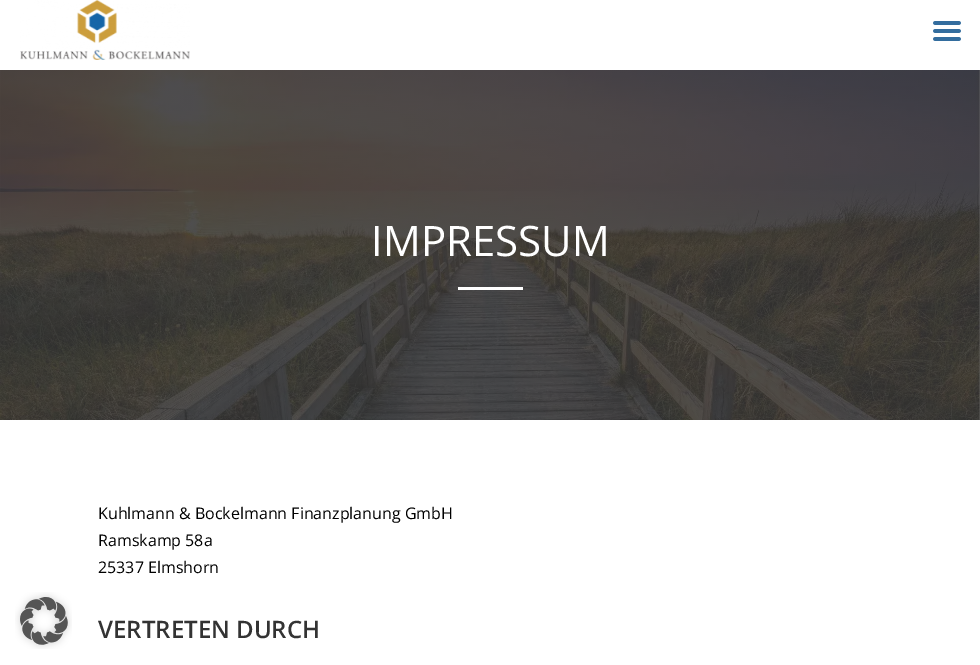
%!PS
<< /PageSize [980 665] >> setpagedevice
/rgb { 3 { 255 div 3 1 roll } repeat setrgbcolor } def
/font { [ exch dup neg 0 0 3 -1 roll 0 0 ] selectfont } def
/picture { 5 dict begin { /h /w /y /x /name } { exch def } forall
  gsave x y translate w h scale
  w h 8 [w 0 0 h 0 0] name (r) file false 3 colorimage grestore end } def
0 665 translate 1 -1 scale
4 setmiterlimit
255 255 255 rgb
0 0 980 665 rectfill
(img/1.rgb) 20 0 170 60 picture
(img/2.rgb) 933 21 28 20 picture
(img/3.rgb) 15 592 57 57 picture
(img/4.rgb) 0 70 980 350 picture
458 287 65 3 rectfill
/OpenSans-Regular 42 font
371 256 moveto (IMPRESSUM) show
/OpenSans-Regular 16 font
0 0 0 rgb
[
  [(Kuhlmann & Bockelmann Finanzplanung GmbH) 98 519]
  [(Ramskamp 58a) 98 546]
  [(25337 Elmshorn) 98 573]
] { aload pop moveto show } forall
/OpenSans-SemiBold 24 font
51 51 51 rgb
98 638 moveto (VERTRETEN DURCH) show
showpage
